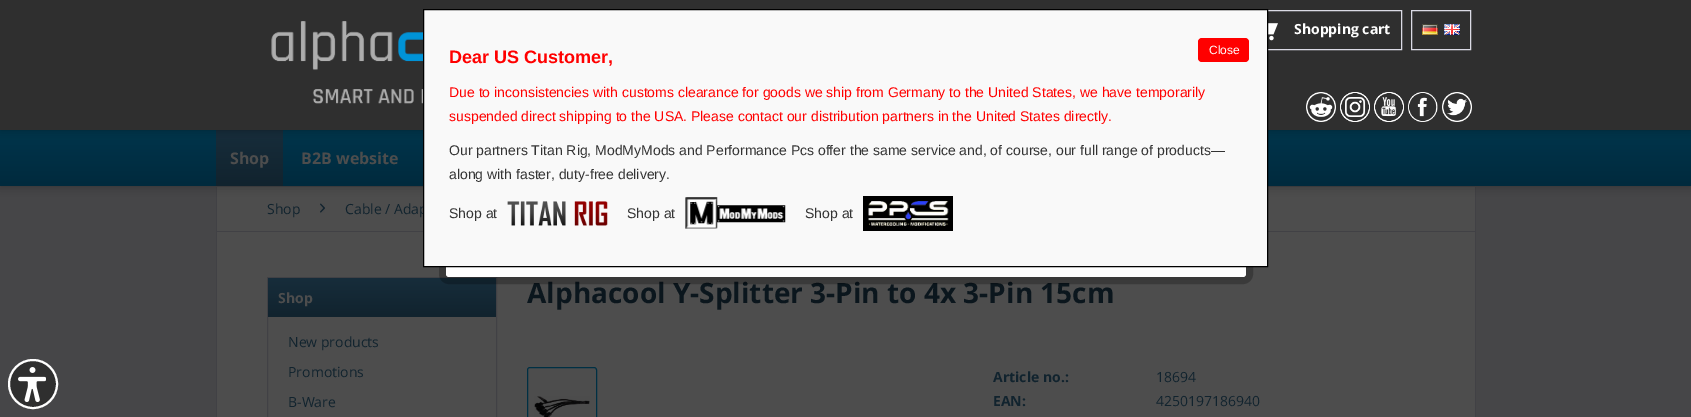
%!PS
<< /PageSize [1691 417] /PageUsesTransparency true >> setpagedevice
/rgb { 3 { 255 div 3 1 roll } repeat setrgbcolor } def
/font { [ exch dup neg 0 0 3 -1 roll 0 0 ] selectfont } def
/alpha { dup .setfillconstantalpha .setstrokeconstantalpha } def
/circle { newpath 0 360 arc closepath } def
/roundrect { 5 dict begin { /r /h /w /y /x } { exch def } forall
  x r add y moveto x w add y 2 copy h add r arct x w add y h add x 1 index r arct
  x y h add x y r arct x y 2 copy exch w add exch r arct closepath end } def
/shadow { 12 dict begin { /a /b /q /h /w /y /x } { exch def } forall gsave /was 0 def
  9 -2 -9 { dup b mul 4 div /e exch def 1 sub .425 mul 2.718 exch exp 1 add a .99 .min exch div /now exch def
    1 1 now sub 1 was sub div sub alpha /was now def
    w h .min e 2 mul add 0 gt { x e sub y e sub w e 2 mul add h e 2 mul add
      q e add b .6 mul add w h .min 2 div e add .min 0 .max roundrect fill } if } for grestore end } def
/picture { 5 dict begin { /h /w /y /x /name } { exch def } forall
  gsave x y translate w h scale
  w h 8 [w 0 0 h 0 0] name (r) file false 3 colorimage grestore end } def
0 .pushpdf14devicefilter
0 417 translate 1 -1 scale
4 setmiterlimit
70 70 72 rgb
0 0 1691 417 rectfill
[
  [217 187 1258 230 77 77 77]
  [1475 187 1 230 65 65 69]
  [216 187 1 230 65 65 69]
] { aload pop rgb rectfill } forall
0 0 0 rgb
0 130 1691 56 0 5 0.3 shadow
gsave 0 130 moveto 1691 130 lineto 1691 186 lineto 0 186 lineto closepath clip newpath
<< /ShadingType 2 /ColorSpace /DeviceRGB /Coords [846 130 846 186] /Extend [true true] /Function << /FunctionType 2 /Domain [0 1] /C0 [0 0.208 0.298] /C1 [0 0.165 0.239] /N 1 >> >> shfill grestore
gsave 216 130 moveto 283 130 lineto 283 186 lineto 216 186 lineto closepath clip newpath
<< /ShadingType 2 /ColorSpace /DeviceRGB /Coords [250 130 250 186] /Extend [true true] /Function << /FunctionType 2 /Domain [0 1] /C0 [0.09 0.176 0.231] /C1 [0.067 0.137 0.18] /N 1 >> >> shfill grestore
0 0 1691 130 0 5 0.3 shadow
47 47 47 rgb
0 0 1691 130 rectfill
(img/1.rgb) 271 21 152 83 picture
218 218 229 rgb
1243.5 10.5 158 39 rectstroke
(img/2.rgb) 1268 23 10 18 picture
1411.5 10.5 59 39 rectstroke
(img/3.rgb) 1422 24 16 11 picture
(img/4.rgb) 1444 24 16 11 picture
(img/5.rgb) 1306 92 30 30 picture
(img/6.rgb) 1340 92 30 30 picture
(img/7.rgb) 1374 92 30 30 picture
(img/8.rgb) 1408 92 30 30 picture
(img/9.rgb) 1442 92 30 30 picture
65 65 69 rgb
217 231 1258 1 rectfill
(img/10.rgb) 320 203 5 10 picture
267.5 277.5 229 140 rectstroke
gsave 271 278 moveto 493 278 lineto 494.5 278 496 279.5 496 281 curveto 496 317 lineto 268 317 lineto 268 281 lineto 268 279.5 269.5 278 271 278 curveto closepath clip newpath
<< /ShadingType 2 /ColorSpace /DeviceRGB /Coords [382 278 382 317] /Extend [true true] /Function << /FunctionType 2 /Domain [0 1] /C0 [0.09 0.176 0.231] /C1 [0.067 0.137 0.18] /N 1 >> >> shfill grestore
0 48 68 rgb
527.5 367.5 69 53 2.5 roundrect stroke
(img/11.rgb) 534 396 56 21 picture
47 47 47 rgb
33 384 23 circle fill
(img/15.rgb) 18 367 28 35 picture
255 255 255 rgb
2 setlinewidth
33 384 24 circle stroke
/OpenSans-Bold 14 font
1294 34 moveto (Shopping cart) show
/OpenSans-Bold 16 font
77 77 77 rgb
230 164 moveto (Shop) show
301 164 moveto (B2B website) show
/OpenSans-Regular 14 font
17 35 46 rgb
267 214 moveto (Shop) show
345 214 moveto (Cable / Adap) show
/OpenSans-Bold 14 font
77 77 77 rgb
278 303 moveto (Shop) show
/OpenSans-Regular 14 font
17 35 46 rgb
[
  [(New products) 288 347]
  [(Promotions) 288 377]
  [(B-Ware) 288 407]
] { aload pop moveto show } forall
/OpenSans-Bold 28 font
11 22 29 rgb
527 303 moveto (Alphacool Y-Splitter 3-Pin to 4x 3-Pin 15cm) show
/OpenSans-Bold 14 font
17 35 46 rgb
993 382 moveto (Article no.:) show
/OpenSans-Regular 14 font
1156 382 moveto (18694) show
/OpenSans-Bold 14 font
993 406 moveto (EAN:) show
/OpenSans-Regular 14 font
1156 406 moveto (4250197186940) show
0.25 alpha
0 0 0 rgb
7 setlinewidth
442.5 137.5 807 143 6.5 roundrect stroke
1 alpha
255 255 255 rgb
446 141 800 136 3 roundrect fill
249 249 249 rgb
423.5 9.5 moveto 1267.5 9.5 lineto 1267.5 266.5 lineto 423.5 266.5 lineto closepath gsave fill grestore
0 0 0 rgb
1 setlinewidth
stroke
255 0 0 rgb
1198 38 51 24 4 roundrect fill
/LiberationSans-Regular 12 font
255 255 255 rgb
1209 54 moveto (Close) show
0 0 0 rgb
863 196 90 35 rectfill
(img/14.rgb) 868 201 81 25 picture
/LiberationSans-Regular 14 font
51 51 51 rgb
805 218 moveto (Shop at) show
(img/13.rgb) 685 197 101 32 picture
627 218 moveto (Shop at) show
(img/12.rgb) 507 201 101 25 picture
[
  [(Shop at) 449 218]
  [(along with faster, duty-free delivery.) 449 179]
  [(Our partners Titan Rig, ModMyMods and Performance Pcs offer the same service and, of course, our full range of products—) 449 155]
] { aload pop moveto show } forall
255 0 0 rgb
449 121 moveto (suspended direct shipping to the USA. Please contact our distribution partners in the United States directly.) show
449 97 moveto (Due to inconsistencies with customs clearance for goods we ship from Germany to the United States, we have temporarily) show
/LiberationSans-Bold 18 font
449 63 moveto (Dear US Customer,) show
.poppdf14devicefilter showpage
